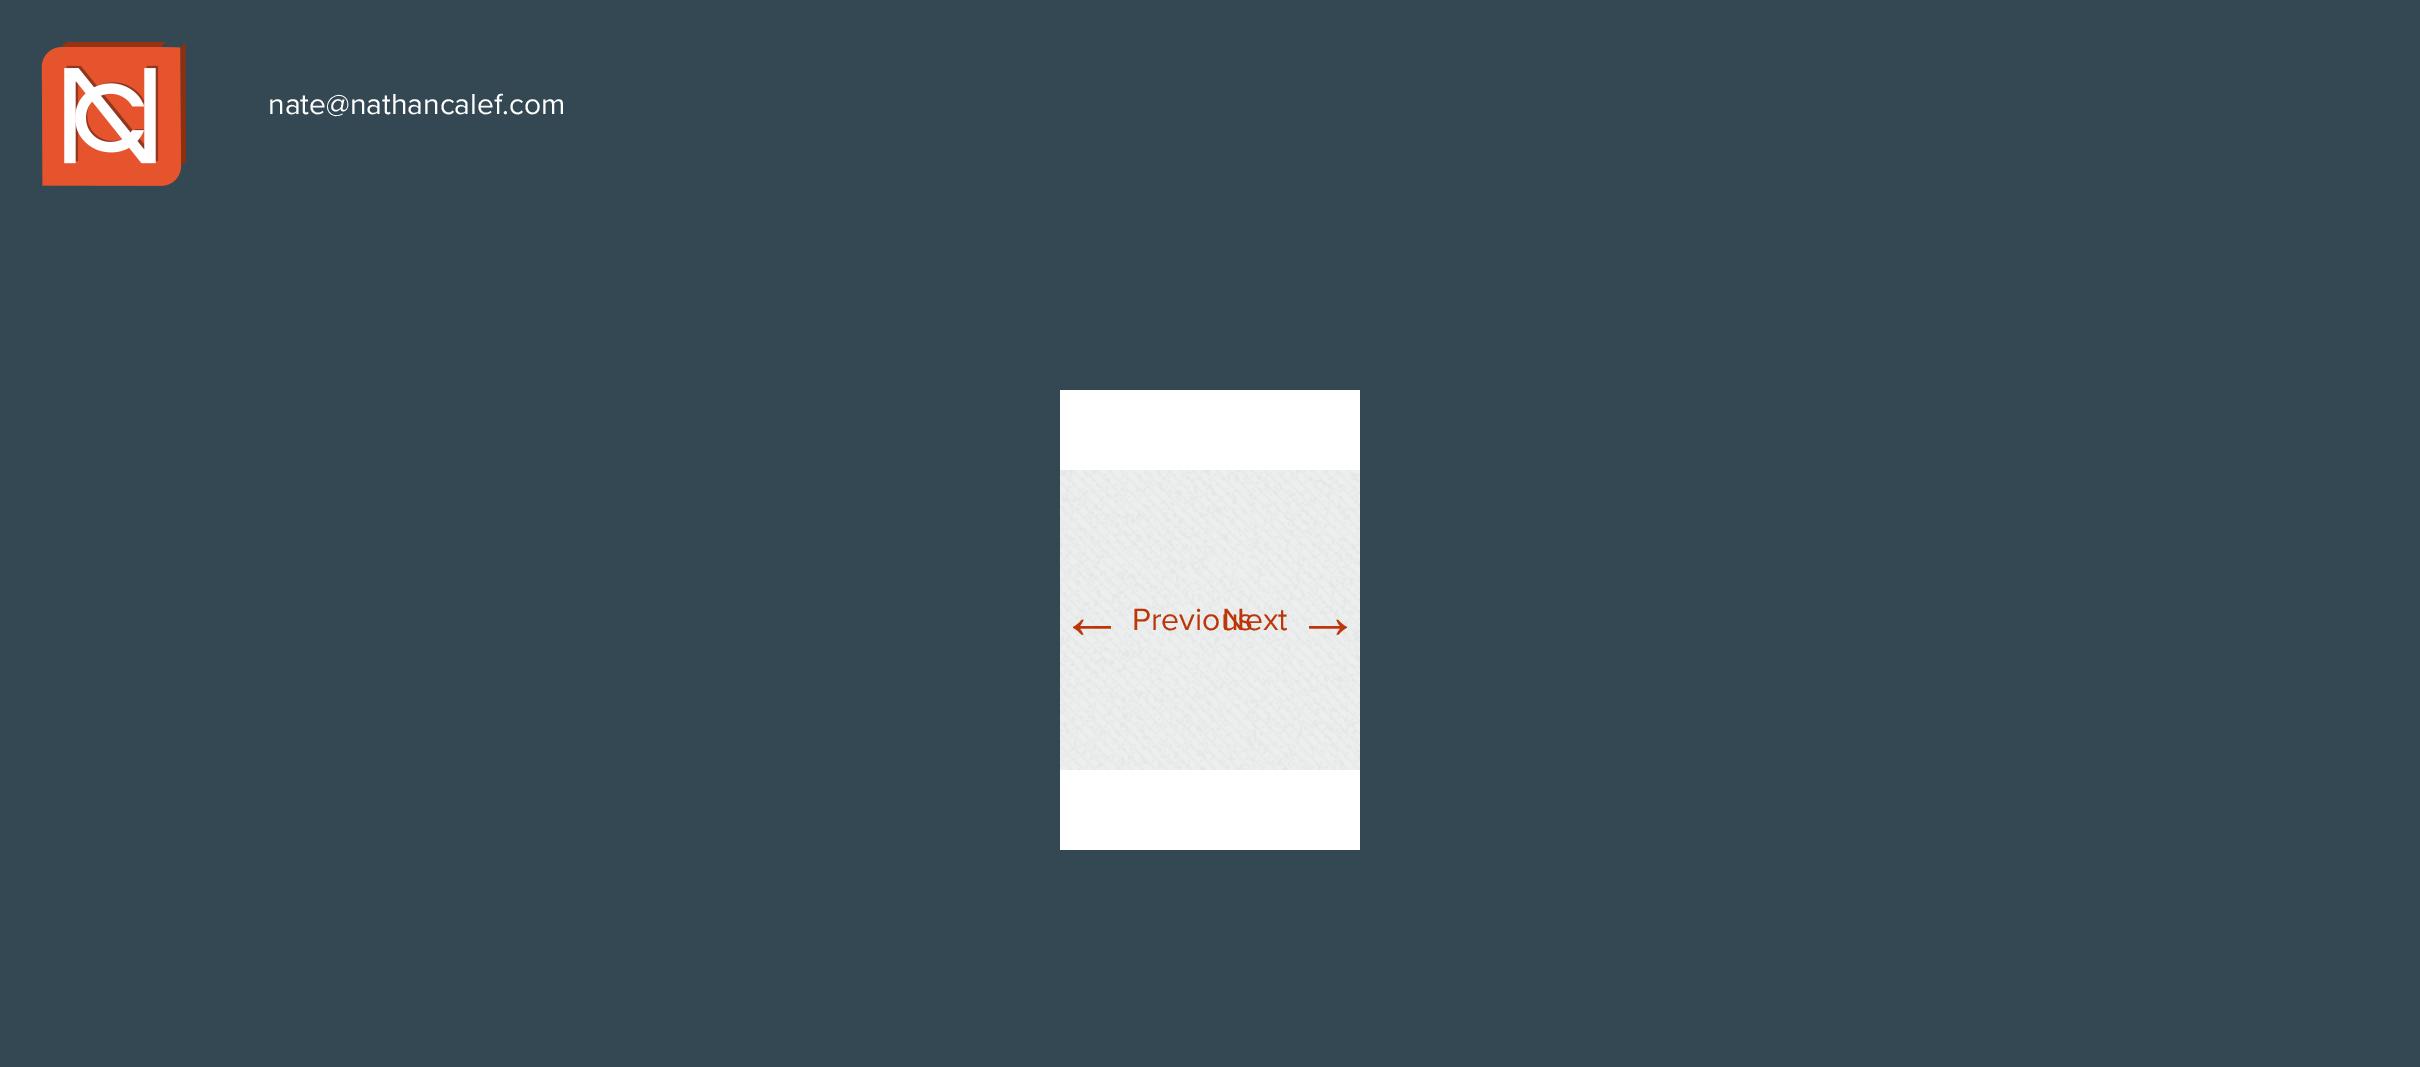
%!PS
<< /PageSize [2420 1067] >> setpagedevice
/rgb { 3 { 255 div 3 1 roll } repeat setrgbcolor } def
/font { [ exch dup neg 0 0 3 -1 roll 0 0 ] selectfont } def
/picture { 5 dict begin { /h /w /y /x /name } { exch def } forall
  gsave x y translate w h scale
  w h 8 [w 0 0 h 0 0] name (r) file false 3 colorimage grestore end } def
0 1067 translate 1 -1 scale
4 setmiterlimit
51 72 82 rgb
0 0 2420 1067 rectfill
(img/1.rgb) 41 41 146 145 picture
255 255 255 rgb
1060 390 300 460 rectfill
(img/2.rgb) 1060 470 300 300 picture
/ProximaNova-Regular 30 font
268 114 moveto (nate@nathancalef.com) show
/LiberationSans-Regular 64 font
188 54 10 rgb
1060 638 moveto (←) show
/ProximaNova-Regular 32 font
1132 630 moveto (Previous) show
1222 630 moveto (Next) show
/LiberationSans-Regular 64 font
1296 638 moveto (→) show
showpage
